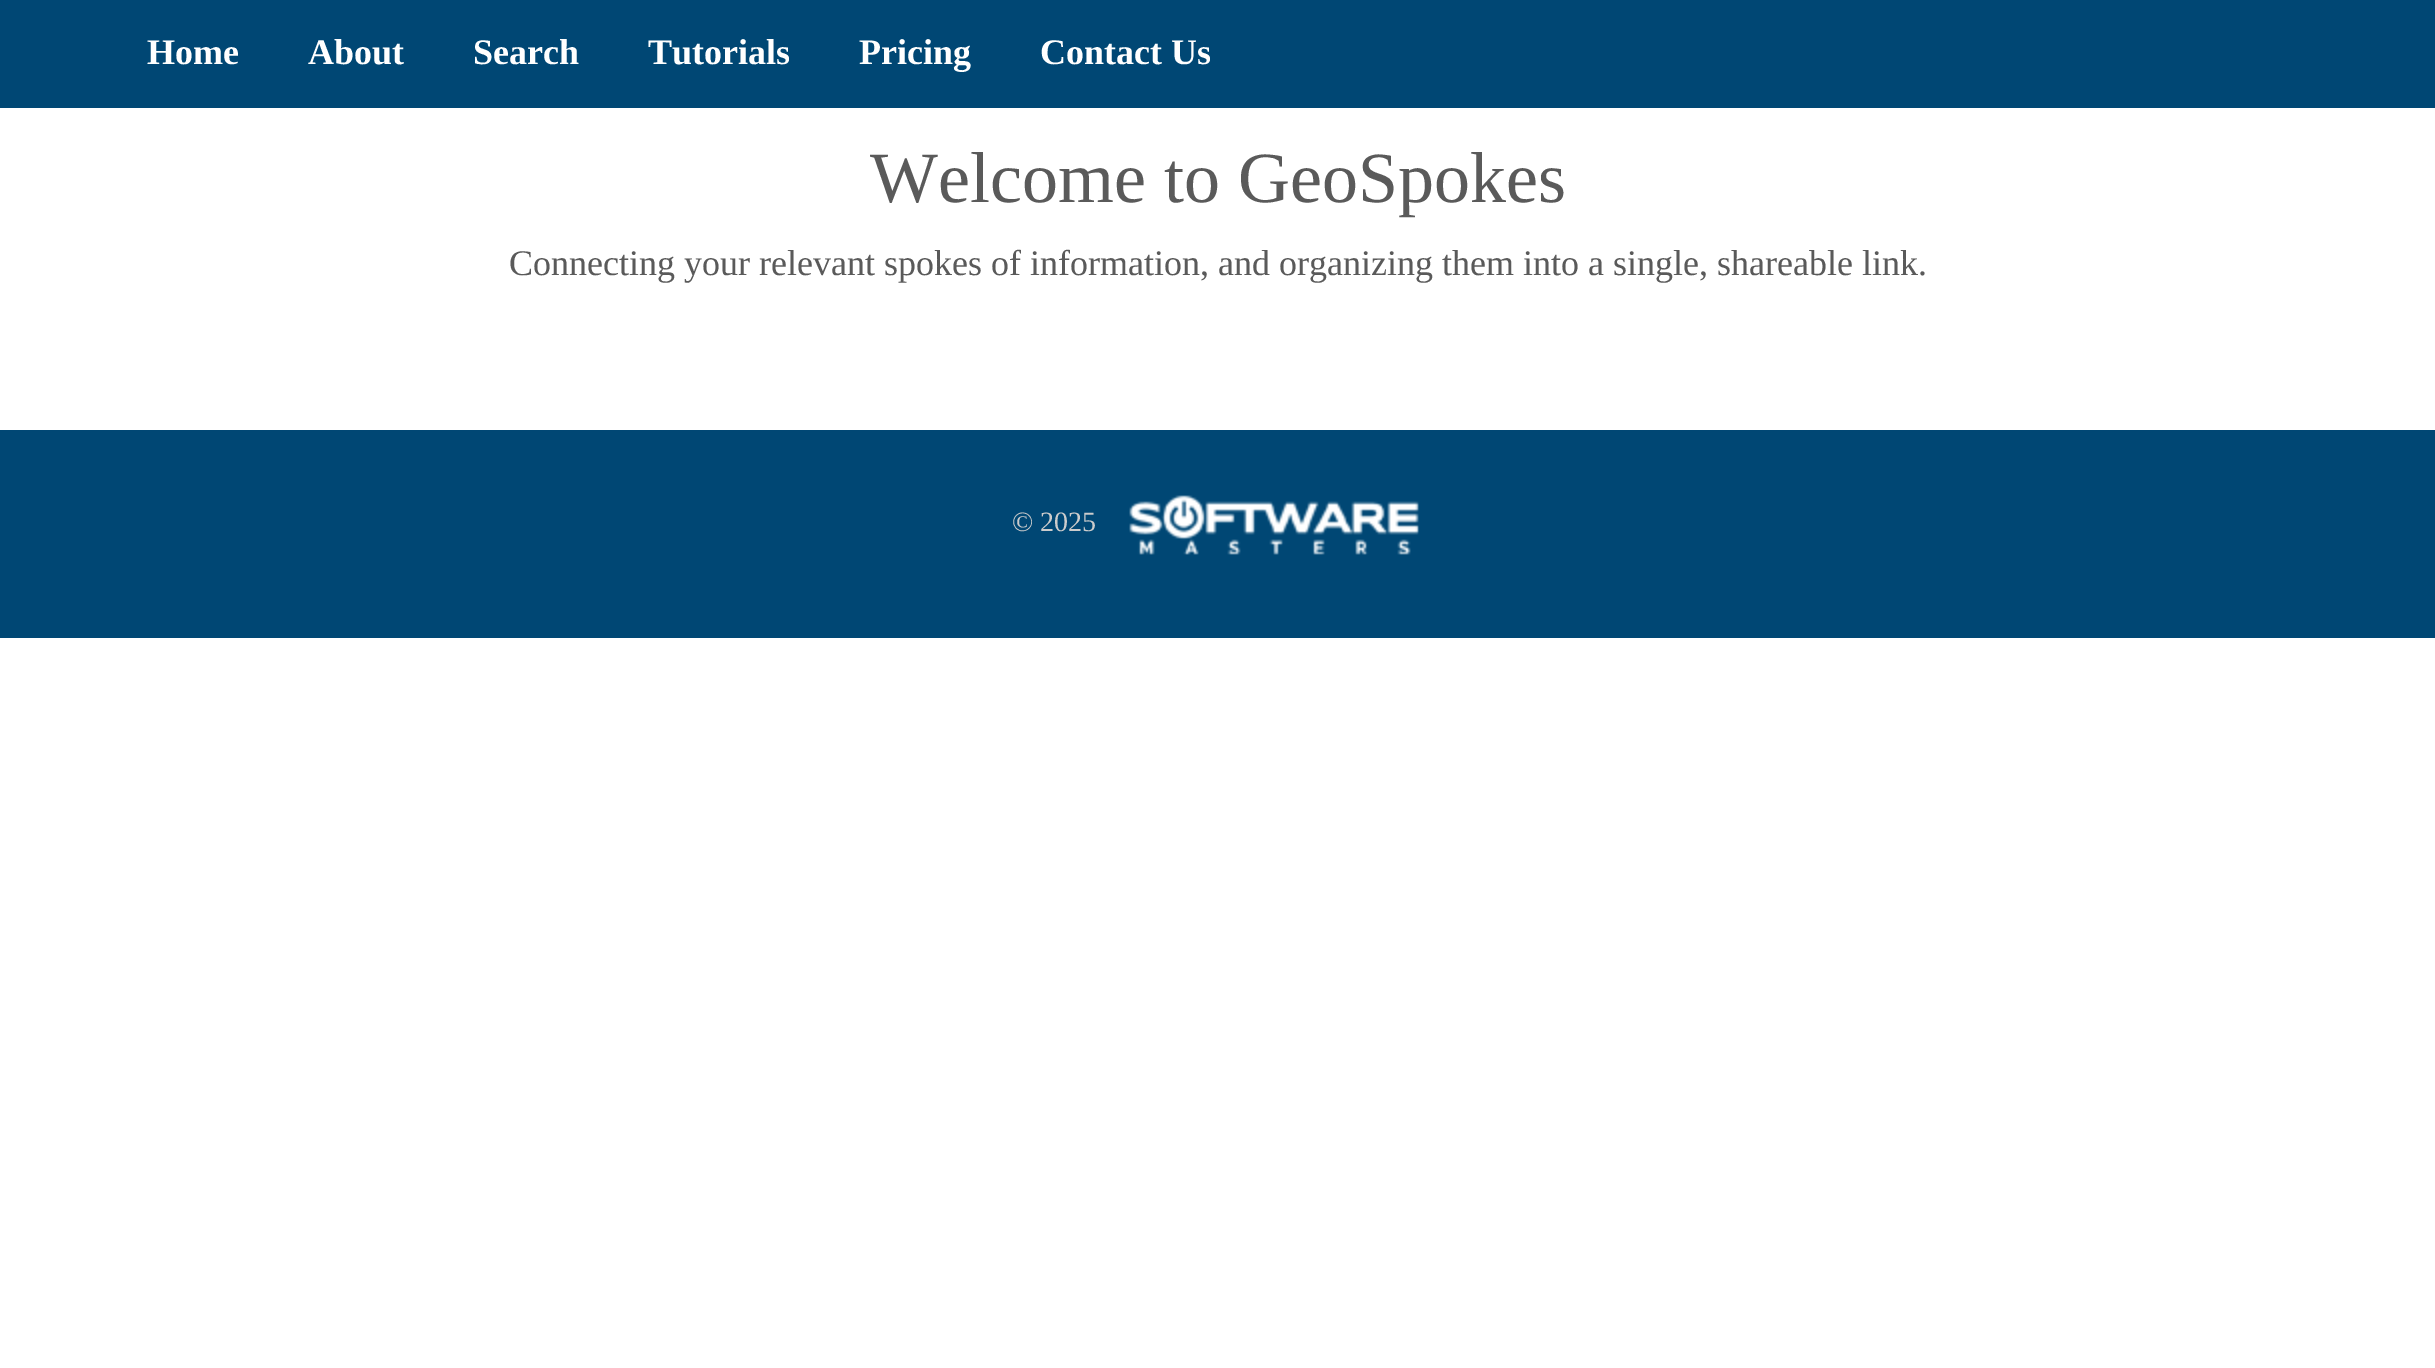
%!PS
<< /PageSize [2435 1368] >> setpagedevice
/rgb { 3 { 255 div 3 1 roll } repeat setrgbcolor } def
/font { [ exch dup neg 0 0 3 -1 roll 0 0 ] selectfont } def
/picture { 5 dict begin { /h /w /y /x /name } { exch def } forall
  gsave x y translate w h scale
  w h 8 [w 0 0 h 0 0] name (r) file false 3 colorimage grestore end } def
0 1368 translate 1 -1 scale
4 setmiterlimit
255 255 255 rgb
0 0 2435 1368 rectfill
0 71 116 rgb
0 0 2435 108 rectfill
0 430 2435 208 rectfill
(img/1.rgb) 1129 495 290 60 picture
/LiberationSerif-Bold 36 font
255 255 255 rgb
[
  [(Home) 147 64]
  [(About) 308 64]
  [(Search) 473 64]
  [(Tutorials) 648 64]
  [(Pricing) 859 64]
  [(Contact Us) 1040 64]
] { aload pop moveto show } forall
/LiberationSerif-Regular 72 font
90 90 90 rgb
870 202 moveto (Welcome to GeoSpokes) show
/LiberationSerif-Regular 36 font
509 275 moveto (Connecting your relevant spokes of information, and organizing them into a single, shareable link.) show
/LiberationSerif-Regular 28 font
204 204 204 rgb
1012 531 moveto (© 2025) show
showpage
